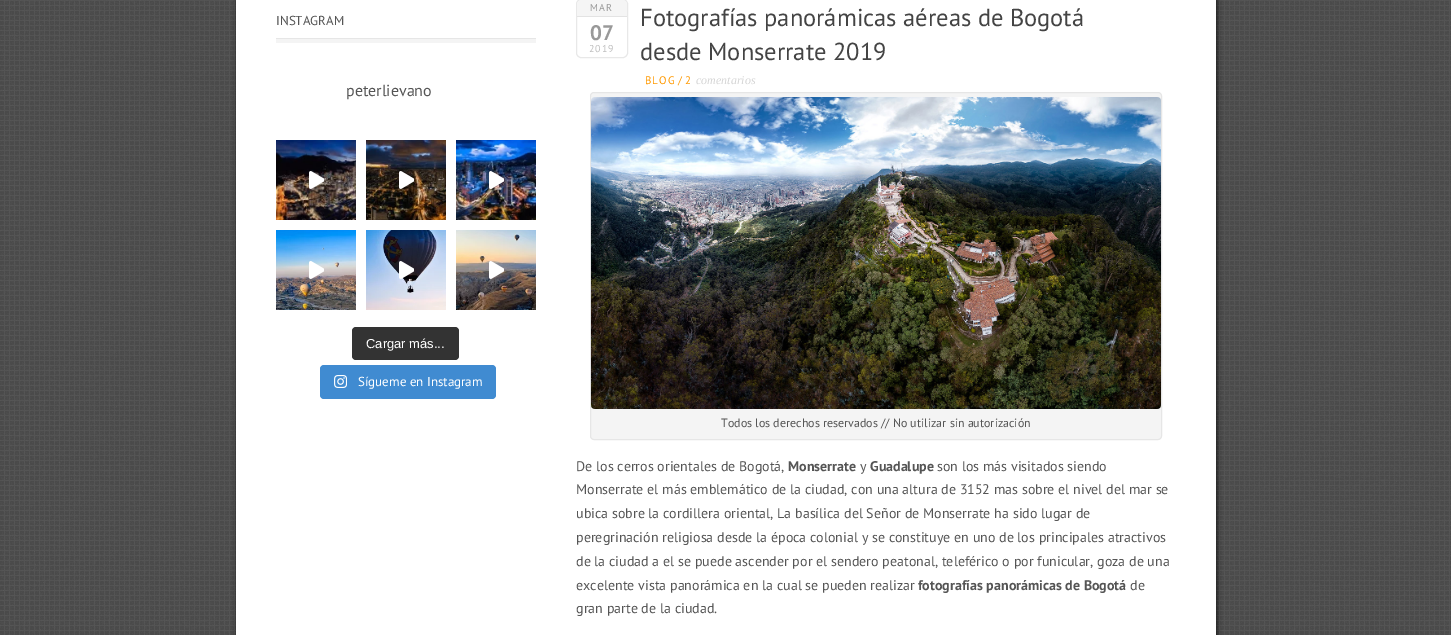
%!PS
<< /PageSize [1451 635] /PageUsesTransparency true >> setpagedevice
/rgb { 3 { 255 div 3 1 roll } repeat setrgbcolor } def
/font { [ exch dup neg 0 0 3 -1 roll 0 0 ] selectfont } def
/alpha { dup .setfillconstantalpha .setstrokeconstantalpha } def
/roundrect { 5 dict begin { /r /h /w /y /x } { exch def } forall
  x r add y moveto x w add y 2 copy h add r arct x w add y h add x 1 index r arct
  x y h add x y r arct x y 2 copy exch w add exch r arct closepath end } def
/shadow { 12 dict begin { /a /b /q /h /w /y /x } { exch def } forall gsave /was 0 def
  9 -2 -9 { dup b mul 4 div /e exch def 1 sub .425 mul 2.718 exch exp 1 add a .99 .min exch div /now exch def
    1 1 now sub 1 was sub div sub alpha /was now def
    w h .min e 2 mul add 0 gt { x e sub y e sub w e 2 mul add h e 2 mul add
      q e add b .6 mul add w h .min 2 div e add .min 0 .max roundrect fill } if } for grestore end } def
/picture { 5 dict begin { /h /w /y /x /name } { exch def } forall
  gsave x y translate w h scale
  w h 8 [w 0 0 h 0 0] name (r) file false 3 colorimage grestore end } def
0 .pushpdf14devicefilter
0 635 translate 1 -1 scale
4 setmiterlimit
74 74 74 rgb
0 0 1451 635 rectfill
(img/1.rgb) 0 0 1451 635 picture
0 0 0 rgb
237 -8 980 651 0 2.5 0.7 shadow
[
  [236 0 980 635 255 255 255]
  [276 39 260 4 244 244 244]
  [276 38 260 1 230 230 230]
] { aload pop rgb rectfill } forall
(img/2.rgb) 276 140 80 80 picture
(img/3.rgb) 309 171 15 18 picture
(img/4.rgb) 366 140 80 80 picture
(img/5.rgb) 399 171 15 18 picture
(img/6.rgb) 456 140 80 80 picture
(img/7.rgb) 489 171 15 18 picture
(img/8.rgb) 276 230 80 80 picture
(img/9.rgb) 309 261 15 18 picture
(img/10.rgb) 366 230 80 80 picture
(img/11.rgb) 399 261 15 18 picture
(img/12.rgb) 456 230 80 80 picture
(img/13.rgb) 489 261 15 18 picture
51 51 51 rgb
352 327 107 33 4 roundrect fill
64 139 209 rgb
320 365 176 34 4 roundrect fill
(img/14.rgb) 334 375 13 13 picture
232 232 232 rgb
576.5 -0.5 51 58 4.5 roundrect stroke
245 245 245 rgb
582 0 moveto 622 0 lineto 625 0 627 2 627 5 curveto 627 17 lineto 577 17 lineto 577 5 lineto 577 2 579 0 582 0 curveto closepath fill
227 227 227 rgb
577 16 50 1 rectfill
244 244 244 rgb
590.5 92.5 571 347 3.5 roundrect gsave fill grestore
230 230 230 rgb
stroke
(img/15.rgb) 591 97 570 312 picture
/PTSans-Regular 13 font
85 85 85 rgb
276 25 moveto (INSTAGRAM) show
/PTSans-Regular 16 font
346 96 moveto (peterlievano) show
/LiberationSans-Regular 13 font
255 255 255 rgb
366 348 moveto (Cargar más...) show
/PTSans-Regular 13 font
358 386 moveto (Sígueme en Instagram) show
/PTSans-Regular 10 font
153 153 153 rgb
590 11 moveto 1 0 (MAR) ashow
/PTSans-Bold 21 font
590 40 moveto (07) show
/PTSans-Regular 10 font
190 190 190 rgb
589 52 moveto 1 0 (2019) ashow
/PTSans-Regular 24.5 font
68 68 68 rgb
640 26 moveto (Fotografías panorámicas aéreas de Bogotá) show
640 60 moveto (desde Monserrate 2019) show
/PTSans-Regular 11 font
255 153 0 rgb
645 84 moveto 1 0 (BLOG) ashow
678 84 moveto (/) show
685 84 moveto 1 0 (2) ashow
/LiberationSerif-Italic 12 font
213 213 213 rgb
696 84 moveto (comentarios) show
/PTSans-Regular 12 font
85 85 85 rgb
721 427 moveto (Todos los derechos reservados // No utilizar sin autorización) show
/PTSans-Regular 14 font
576 471 moveto (De los cerros orientales de Bogotá,) show
/PTSans-Bold 14 font
788 471 moveto (Monserrate) show
/PTSans-Regular 14 font
860 471 moveto (y) show
/PTSans-Bold 14 font
870 471 moveto (Guadalupe) show
/PTSans-Regular 14 font
[
  [(son los más visitados siendo) 937 471]
  [(Monserrate el más emblemático de la ciudad, con una altura de 3152 mas sobre el nivel del mar se) 576 494]
  [(ubica sobre la cordillera oriental, La basílica del Señor de Monserrate ha sido lugar de) 576 518]
  [(peregrinación religiosa desde la época colonial y se constituye en uno de los principales atractivos) 576 542]
  [(de la ciudad a el se puede ascender por el sendero peatonal, teleférico o por funicular, goza de una) 576 566]
  [(excelente vista panorámica en la cual se pueden realizar) 576 590]
] { aload pop moveto show } forall
/PTSans-Bold 14 font
918 590 moveto (fotografías panorámicas de Bogotá) show
/PTSans-Regular 14 font
1130 590 moveto (de) show
576 613 moveto (gran parte de la ciudad.) show
.poppdf14devicefilter showpage
